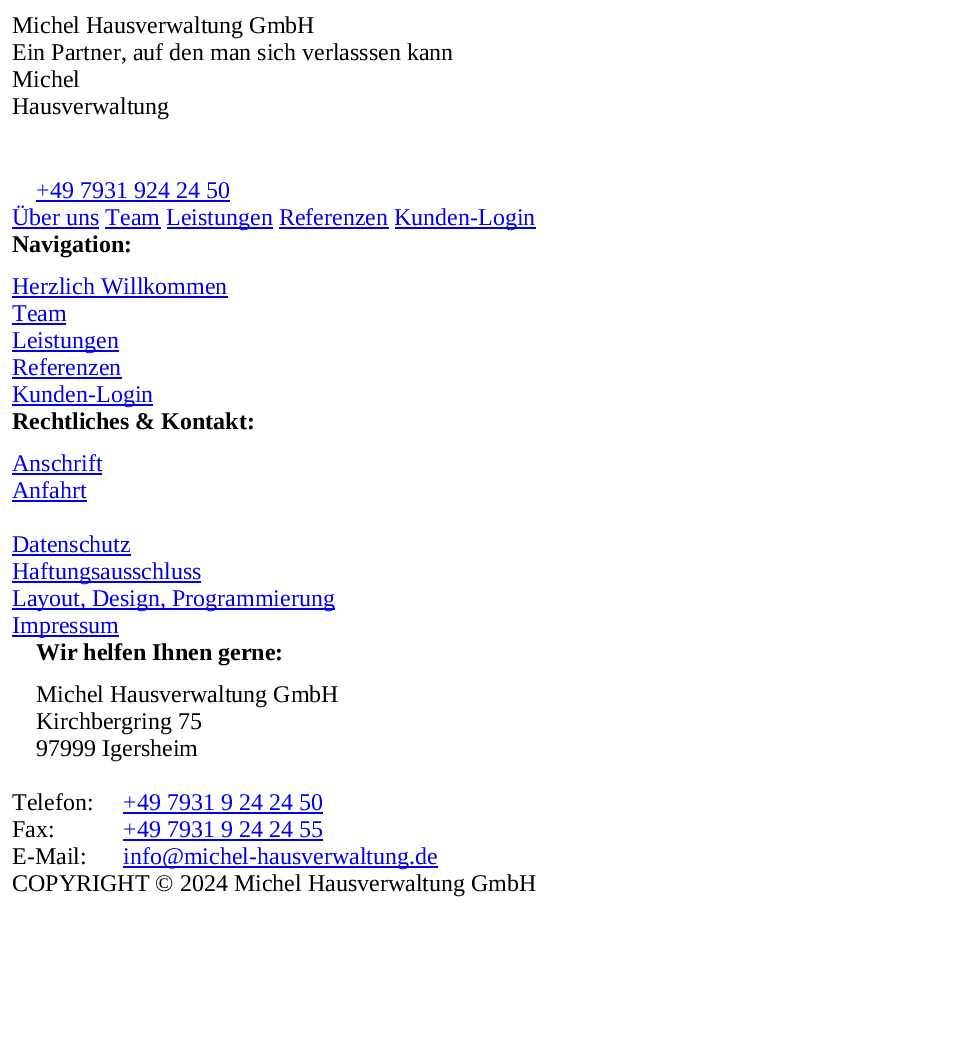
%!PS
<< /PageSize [957 1055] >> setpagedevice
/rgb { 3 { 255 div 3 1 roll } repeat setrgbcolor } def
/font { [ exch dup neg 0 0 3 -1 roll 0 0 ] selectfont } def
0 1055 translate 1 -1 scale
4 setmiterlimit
255 255 255 rgb
0 0 957 1055 rectfill
[
  [36 200 194 2 0 0 238]
  [12 227 87 2 0 0 238]
  [167 227 106 2 0 0 238]
  [395 227 141 2 0 0 238]
  [105 227 56 2 0 0 238]
  [279 227 110 2 0 0 238]
  [12 296 216 2 0 0 238]
  [12 323 54 2 0 0 238]
  [12 350 107 2 0 0 238]
  [12 377 110 2 0 0 238]
  [12 404 141 2 0 0 238]
  [12 473 90 2 0 0 238]
  [12 500 75 2 0 0 238]
  [12 554 119 2 0 0 238]
  [12 581 189 2 0 0 238]
  [12 608 323 2 0 0 238]
  [12 635 107 2 0 0 238]
  [123 812 200 2 0 0 238]
  [123 839 200 2 0 0 238]
  [123 866 315 2 0 0 238]
] { aload pop rgb rectfill } forall
/LiberationSerif-Regular 24 font
0 0 0 rgb
[
  [(Michel Hausverwaltung GmbH) 12 33]
  [(Ein Partner, auf den man sich verlasssen kann) 12 60]
  [(Michel) 12 87]
  [(Hausverwaltung) 12 114]
] { aload pop moveto show } forall
0 0 238 rgb
[
  [(+49 7931 924 24 50) 36 198]
  [(Über uns Team) 12 225]
  [(Leistungen Referenzen) 166 225]
  [(Kunden-Login) 394 225]
] { aload pop moveto show } forall
/LiberationSerif-Bold 24 font
0 0 0 rgb
12 252 moveto (Navigation:) show
/LiberationSerif-Regular 24 font
0 0 238 rgb
[
  [(Herzlich Willkommen) 12 294]
  [(Team) 12 321]
  [(Leistungen) 12 348]
  [(Referenzen) 12 375]
  [(Kunden-Login) 12 402]
] { aload pop moveto show } forall
/LiberationSerif-Bold 24 font
0 0 0 rgb
12 429 moveto (Rechtliches & Kontakt:) show
/LiberationSerif-Regular 24 font
0 0 238 rgb
[
  [(Anschrift) 12 471]
  [(Anfahrt) 12 498]
  [(Datenschutz) 12 552]
  [(Haftungsausschluss) 12 579]
  [(Layout, Design, Programmierung) 12 606]
  [(Impressum) 12 633]
] { aload pop moveto show } forall
/LiberationSerif-Bold 24 font
0 0 0 rgb
36 660 moveto (Wir helfen Ihnen gerne:) show
/LiberationSerif-Regular 24 font
[
  [(Michel Hausverwaltung GmbH) 36 702]
  [(Kirchbergring 75) 36 729]
  [(97999 Igersheim) 36 756]
  [(Telefon:) 12 810]
] { aload pop moveto show } forall
0 0 238 rgb
123 810 moveto (+49 7931 9 24 24 50) show
0 0 0 rgb
12 837 moveto (Fax:) show
0 0 238 rgb
123 837 moveto (+49 7931 9 24 24 55) show
0 0 0 rgb
12 864 moveto (E-Mail:) show
0 0 238 rgb
123 864 moveto (info@michel-hausverwaltung.de) show
0 0 0 rgb
12 891 moveto (COPYRIGHT © 2024 Michel Hausverwaltung GmbH) show
showpage
